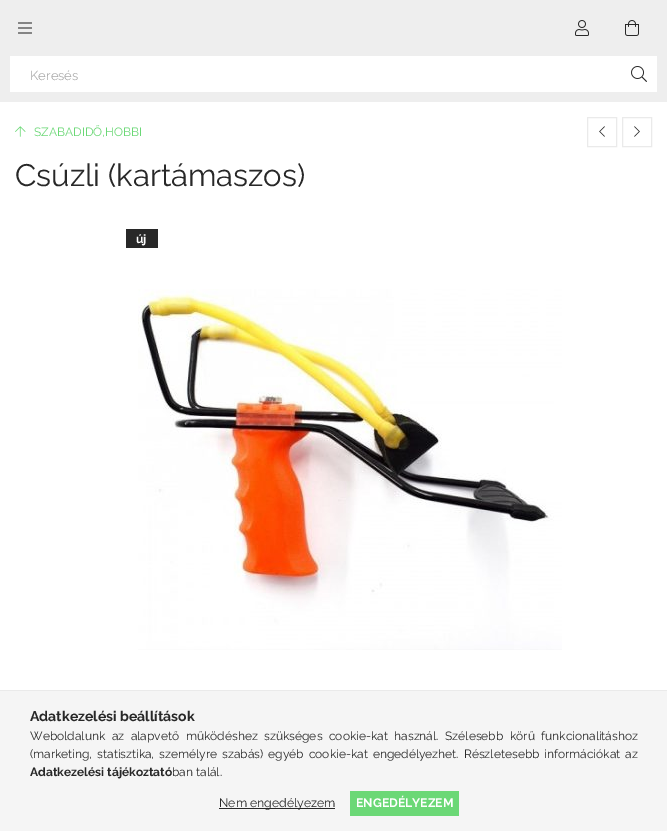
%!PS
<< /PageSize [667 831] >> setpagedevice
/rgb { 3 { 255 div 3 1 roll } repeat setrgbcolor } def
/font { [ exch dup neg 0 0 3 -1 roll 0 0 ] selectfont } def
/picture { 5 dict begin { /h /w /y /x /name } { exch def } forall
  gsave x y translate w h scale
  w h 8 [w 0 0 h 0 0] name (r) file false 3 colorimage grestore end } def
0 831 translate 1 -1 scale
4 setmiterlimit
255 255 255 rgb
0 0 667 831 rectfill
238 238 238 rgb
0 0 667 102 rectfill
(img/1.rgb) 18 22 14 12 picture
(img/2.rgb) 575 20 14 16 picture
(img/3.rgb) 625 20 14 16 picture
255 255 255 rgb
10 56 647 36 rectfill
(img/4.rgb) 631 66 16 16 picture
(img/5.rgb) 15 126 11 11 picture
234 234 234 rgb
587.5 117.5 29 29 rectstroke
(img/6.rgb) 599 126 6 11 picture
622.5 117.5 29 29 rectstroke
(img/7.rgb) 634 126 6 11 picture
40 40 40 rgb
126 229 32 19 rectfill
(img/8.rgb) 138 289 424 361 picture
[
  [0 691 667 140 245 245 245]
  [0 690 667 1 234 234 234]
  [219 808 116 1 40 40 40]
  [350 791 109 25 107 216 118]
] { aload pop rgb rectfill } forall
/Raleway-Regular 13 font
170 170 170 rgb
30 80 moveto (Keresés) show
/Raleway-Regular 12 font
107 216 118 rgb
34 136 moveto (SZABADIDŐ,HOBBI) show
/Raleway-Regular 31 font
40 40 40 rgb
15 186 moveto (Csúzli \(kartámaszos\)) show
/Raleway-Bold 12 font
255 255 255 rgb
136 243 moveto (új) show
/Raleway-Bold 14 font
40 40 40 rgb
30 721 moveto (Adatkezelési beállítások) show
/Raleway-Regular 12 font
30 740 moveto 3.5 0 32 (Weboldalunk az alapvető működéshez szükséges cookie-kat használ. Szélesebb körű funkcionalitáshoz) widthshow
30 758 moveto 2 0 32 (\(marketing, statisztika, személyre szabás\) egyéb cookie-kat engedélyezhet. Részletesebb információkat az) widthshow
/Raleway-Bold 12 font
30 776 moveto (Adatkezelési tájékoztató) show
/Raleway-Regular 12 font
172 776 moveto (ban talál.) show
/Raleway-Regular 12.25 font
219 807 moveto (Nem engedélyezem) show
/Raleway-Bold 12.25 font
255 255 255 rgb
356 807 moveto (ENGEDÉLYEZEM) show
showpage
